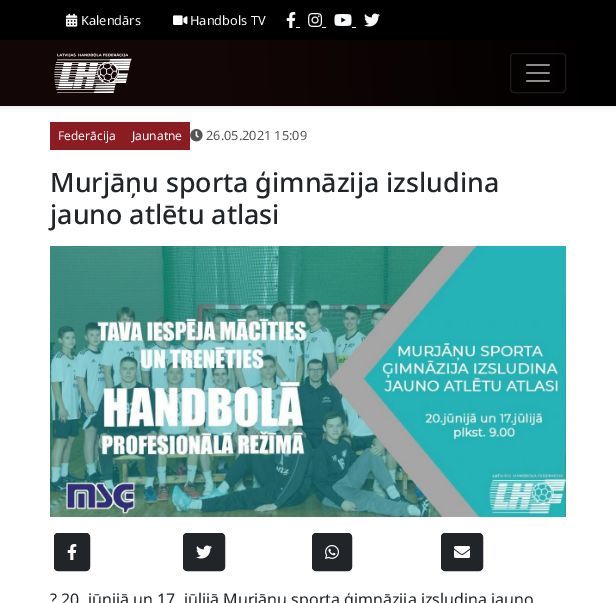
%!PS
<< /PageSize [616 603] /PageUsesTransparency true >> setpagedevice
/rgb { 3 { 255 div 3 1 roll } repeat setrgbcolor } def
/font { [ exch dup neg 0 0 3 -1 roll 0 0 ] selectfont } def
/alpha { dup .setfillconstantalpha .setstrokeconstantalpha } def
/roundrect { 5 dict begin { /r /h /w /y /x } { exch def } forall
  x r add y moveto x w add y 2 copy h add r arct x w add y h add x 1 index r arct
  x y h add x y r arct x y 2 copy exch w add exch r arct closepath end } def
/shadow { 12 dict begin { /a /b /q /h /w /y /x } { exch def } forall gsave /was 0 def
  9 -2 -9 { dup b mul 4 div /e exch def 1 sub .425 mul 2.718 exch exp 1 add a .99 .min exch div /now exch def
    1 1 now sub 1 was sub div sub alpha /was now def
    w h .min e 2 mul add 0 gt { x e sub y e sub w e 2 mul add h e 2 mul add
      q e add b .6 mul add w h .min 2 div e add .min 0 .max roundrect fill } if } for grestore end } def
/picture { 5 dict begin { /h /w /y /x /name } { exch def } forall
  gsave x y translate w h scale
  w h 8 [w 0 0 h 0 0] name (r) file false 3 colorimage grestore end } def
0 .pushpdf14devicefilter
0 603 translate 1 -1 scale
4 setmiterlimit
255 255 255 rgb
0 0 616 603 rectfill
0 0 0 rgb
0 0 616 40 rectfill
(img/1.rgb) 66 13 12 14 picture
(img/2.rgb) 173 15 15 10 picture
(img/3.rgb) 286 12 10 16 picture
248 249 250 rgb
296 27 4 1 rectfill
(img/4.rgb) 308 13 15 14 picture
322 27 4 1 rectfill
(img/5.rgb) 334 14 18 12 picture
352 27 4 1 rectfill
(img/6.rgb) 364 13 16 14 picture
0 0 0 rgb
0 42 616 66 0 2 0.07 shadow
gsave 0 40 moveto 616 40 lineto 616 106 lineto 0 106 lineto closepath clip newpath
<< /ShadingType 2 /ColorSpace /DeviceRGB /Coords [-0.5 100 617 46] /Extend [true true] /Function << /FunctionType 3 /Domain [0 1] /Functions [<< /FunctionType 2 /Domain [0 1] /C0 [0.075 0.024 0.027] /C1 [0.075 0.024 0.027] /N 1 >> << /FunctionType 2 /Domain [0 1] /C0 [0.075 0.024 0.027] /C1 [0 0 0] /N 1 >>] /Bounds [0.37] /Encode [0 1 0 1] >> >> shfill grestore
(img/7.rgb) 54 53 78 40 picture
29 27 27 rgb
510.5 53.5 55 39 3.5 roundrect stroke
(img/8.rgb) 526 64 24 18 picture
138 28 34 rgb
50 122 140 28 rectfill
(img/9.rgb) 190 129 13 13 picture
(img/10.rgb) 50 246 516 271 picture
33 37 41 rgb
54.5 533.5 35 37 3.5 roundrect gsave fill grestore
stroke
(img/11.rgb) 67 544 10 16 picture
183.5 533.5 41 37 3.5 roundrect gsave fill grestore
stroke
(img/12.rgb) 196 545 16 14 picture
312.5 533.5 39 37 3.5 roundrect gsave fill grestore
stroke
(img/13.rgb) 325 545 14 14 picture
441.5 533.5 41 37 3.5 roundrect gsave fill grestore
stroke
(img/14.rgb) 454 546 16 12 picture
/NotoSans-Regular 12.75 font
255 255 255 rgb
81 25 moveto (Kalendārs) show
190 25 moveto (Handbols TV) show
/NotoSans-Regular 12 font
58 140 moveto (Federācija) show
132 140 moveto (Jaunatne) show
/NotoSans-Regular 12.75 font
85 85 85 rgb
206 140 moveto (26.05.2021 15:09) show
/NotoSans-Medium 26.75 font
33 37 41 rgb
50 192 moveto (Murjāņu sporta ģimnāzija izsludina) show
50 224 moveto (jauno atlētu atlasi) show
/NotoSans-Regular 16 font
50 605 moveto (? 20. jūnijā un 17. jūlijā Murjāņu sporta ģimnāzija izsludina jauno) show
.poppdf14devicefilter showpage
